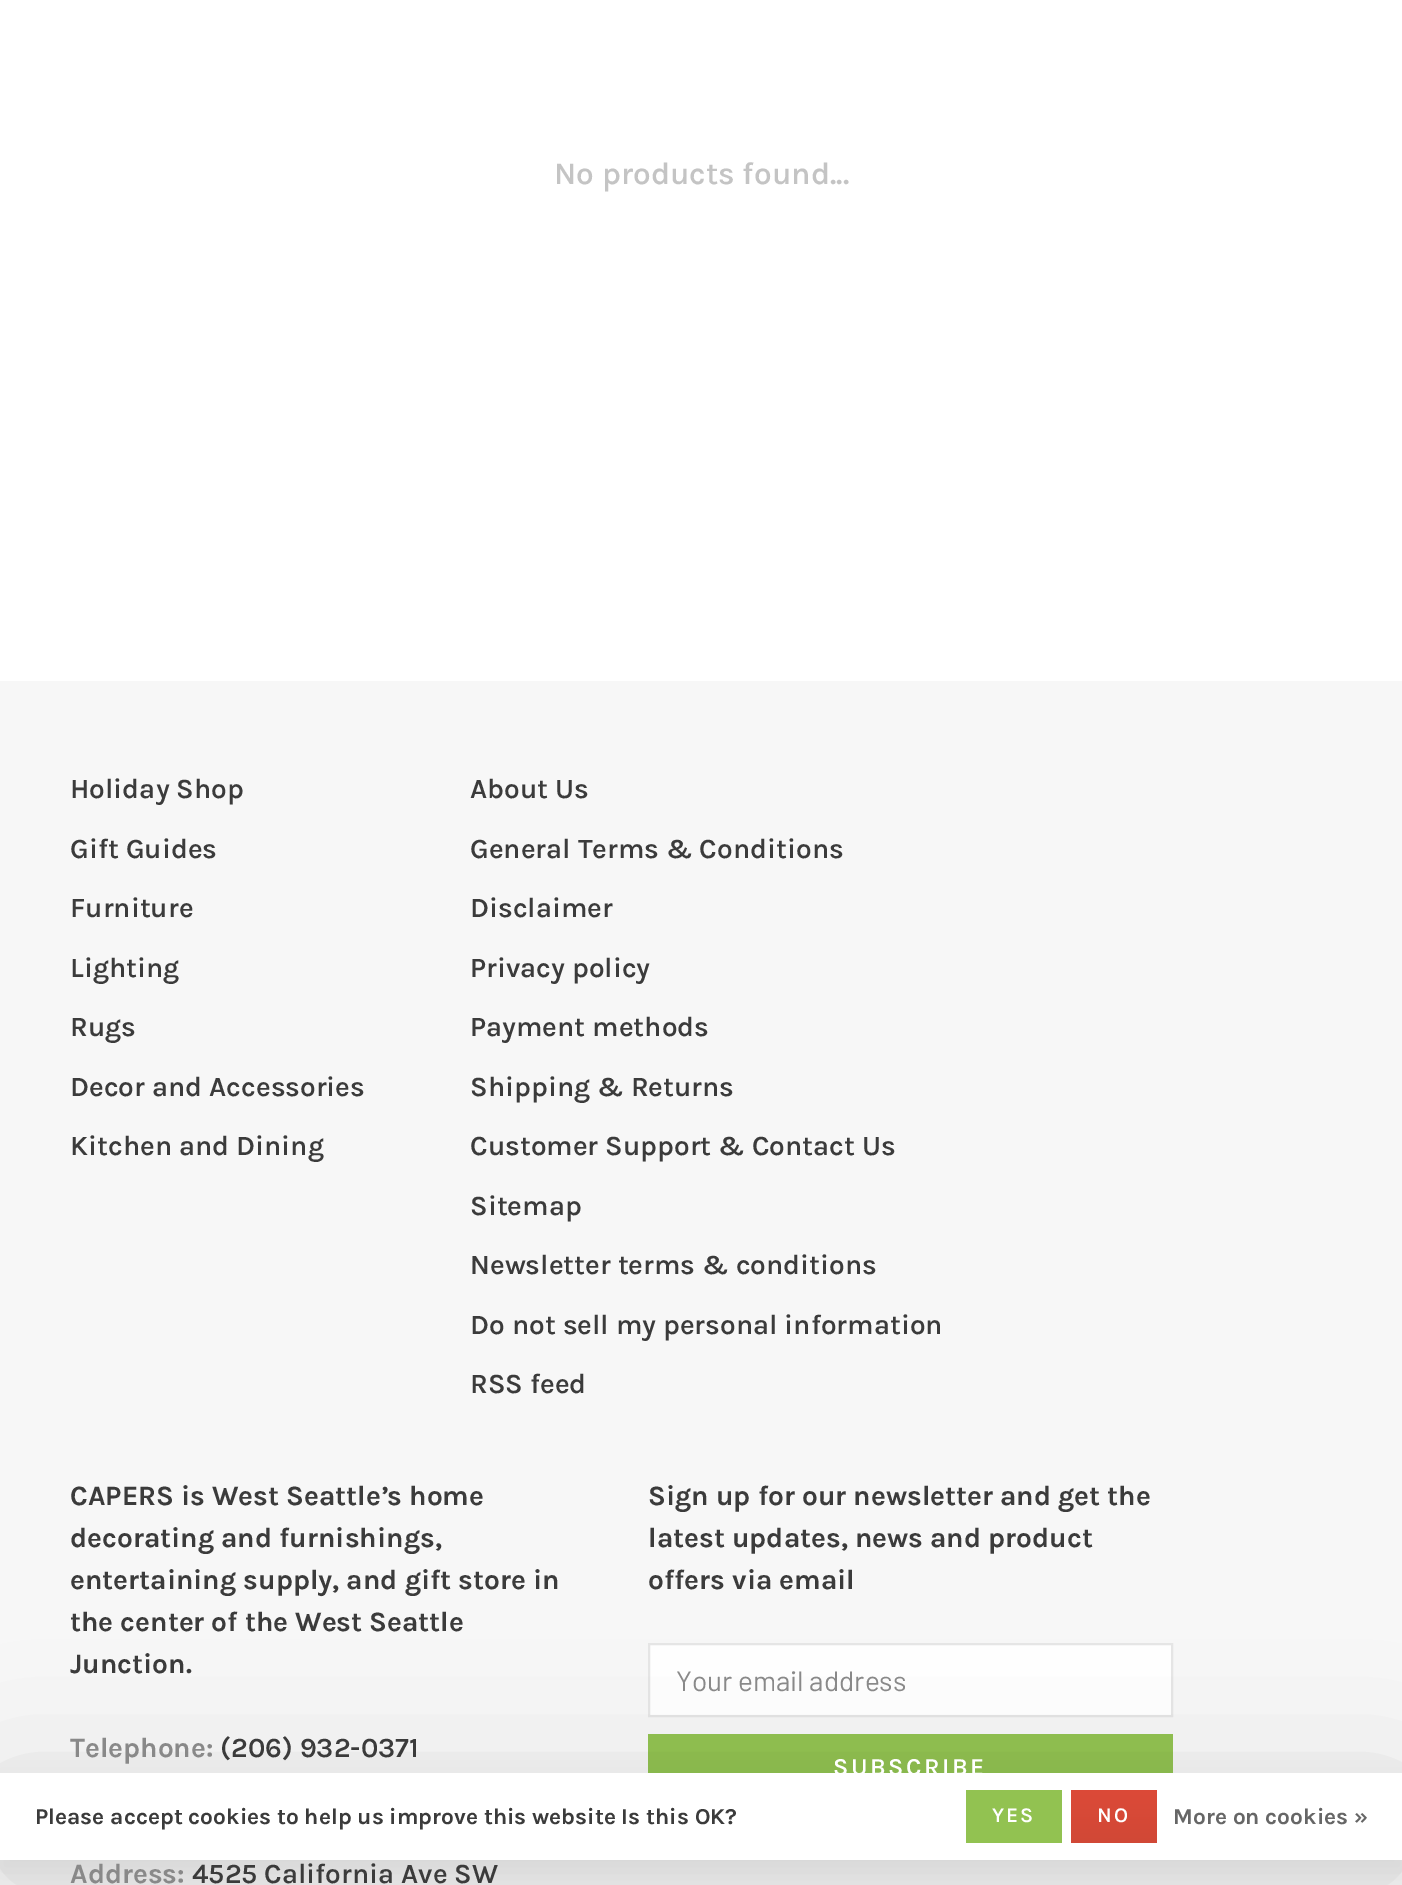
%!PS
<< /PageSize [1402 1885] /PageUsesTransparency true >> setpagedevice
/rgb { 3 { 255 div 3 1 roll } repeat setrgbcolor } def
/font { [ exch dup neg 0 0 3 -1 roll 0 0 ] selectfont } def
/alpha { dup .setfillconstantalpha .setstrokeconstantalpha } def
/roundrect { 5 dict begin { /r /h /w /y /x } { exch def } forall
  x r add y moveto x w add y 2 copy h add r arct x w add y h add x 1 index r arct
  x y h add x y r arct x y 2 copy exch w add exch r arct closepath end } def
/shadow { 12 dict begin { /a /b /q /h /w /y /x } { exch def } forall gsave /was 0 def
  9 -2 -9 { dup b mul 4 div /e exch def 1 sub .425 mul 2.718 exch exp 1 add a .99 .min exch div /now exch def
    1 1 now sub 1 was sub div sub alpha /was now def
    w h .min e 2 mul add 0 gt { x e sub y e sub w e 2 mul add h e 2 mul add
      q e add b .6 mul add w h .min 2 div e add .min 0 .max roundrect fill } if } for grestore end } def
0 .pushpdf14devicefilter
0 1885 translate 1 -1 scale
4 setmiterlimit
255 255 255 rgb
0 0 1402 1885 rectfill
247 247 247 rgb
0 681 1402 1204 rectfill
255 255 255 rgb
649 1644 moveto 1172 1644 lineto 1172 1716 lineto 649 1716 lineto closepath gsave fill grestore
230 230 230 rgb
2 setlinewidth
stroke
146 194 81 rgb
648 1734 525 39 rectfill
0 0 0 rgb
0 1783 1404 88 0 13 0.05 shadow
11 1808 1382 66 0 75 0.15 shadow
255 255 255 rgb
0 1773 1402 87 rectfill
146 194 81 rgb
966 1790 96 53 rectfill
gsave 1071 1790 moveto 1157 1790 lineto 1157 1843 lineto 1071 1843 lineto closepath clip newpath
<< /ShadingType 2 /ColorSpace /DeviceRGB /Coords [1114 1790 1114 1843] /Extend [true true] /Function << /FunctionType 2 /Domain [0 1] /C0 [0.863 0.29 0.22] /C1 [0.82 0.282 0.212] /N 1 >> >> shfill grestore
/Karla-SemiBold 31.5 font
196 196 196 rgb
554 184 moveto (No products found...) show
/Karla-SemiBold 28 font
59 59 59 rgb
[
  [(Holiday Shop) 70 798]
  [(Gift Guides) 70 858]
  [(Furniture) 70 917]
  [(Lighting) 70 977]
  [(Rugs) 70 1036]
  [(Decor and Accessories) 70 1096]
  [(Kitchen and Dining) 70 1155]
  [(About Us) 470 798]
  [(General Terms & Conditions) 470 858]
  [(Disclaimer) 470 917]
  [(Privacy policy) 470 977]
  [(Payment methods) 470 1036]
  [(Shipping & Returns) 470 1096]
  [(Customer Support & Contact Us) 470 1155]
  [(Sitemap) 470 1215]
  [(Newsletter terms & conditions) 470 1274]
  [(Do not sell my personal information) 470 1334]
  [(RSS feed) 470 1393]
] { aload pop moveto show } forall
/Karla-Bold 28 font
[
  [(CAPERS is West Seattleʼs home) 70 1505]
  [(decorating and furnishings,) 70 1547]
  [(entertaining supply, and gift store in) 70 1589]
  [(the center of the West Seattle) 70 1631]
  [(Junction.) 70 1673]
] { aload pop moveto show } forall
137 137 137 rgb
70 1757 moveto (Telephone:) show
/Karla-SemiBold 28 font
59 59 59 rgb
220 1757 moveto (\(206\) 932-0371) show
/Karla-Bold 28 font
137 137 137 rgb
70 1883 moveto (Address:) show
/Karla-SemiBold 28 font
59 59 59 rgb
192 1883 moveto (4525 California Ave SW) show
/Karla-Bold 28 font
[
  [(Sign up for our newsletter and get the) 648 1505]
  [(latest updates, news and product) 648 1547]
  [(offers via email) 648 1589]
] { aload pop moveto show } forall
/Barlow-Regular 28 font
137 137 137 rgb
676 1691 moveto (Your email address) show
/Karla-SemiBold 24.5 font
255 255 255 rgb
833 1775 moveto 2.5 0 (SUBSCRIBE) ashow
/Karla-Bold 22.75 font
59 59 59 rgb
35 1824 moveto (Please accept cookies to help us improve this website Is this OK?) show
/Karla-SemiBold 21 font
255 255 255 rgb
992 1822 moveto 2 0 (YES) ashow
1097 1822 moveto 2 0 (NO) ashow
/Karla-Bold 22.75 font
102 102 102 rgb
1173 1824 moveto (More on cookies ») show
.poppdf14devicefilter showpage
